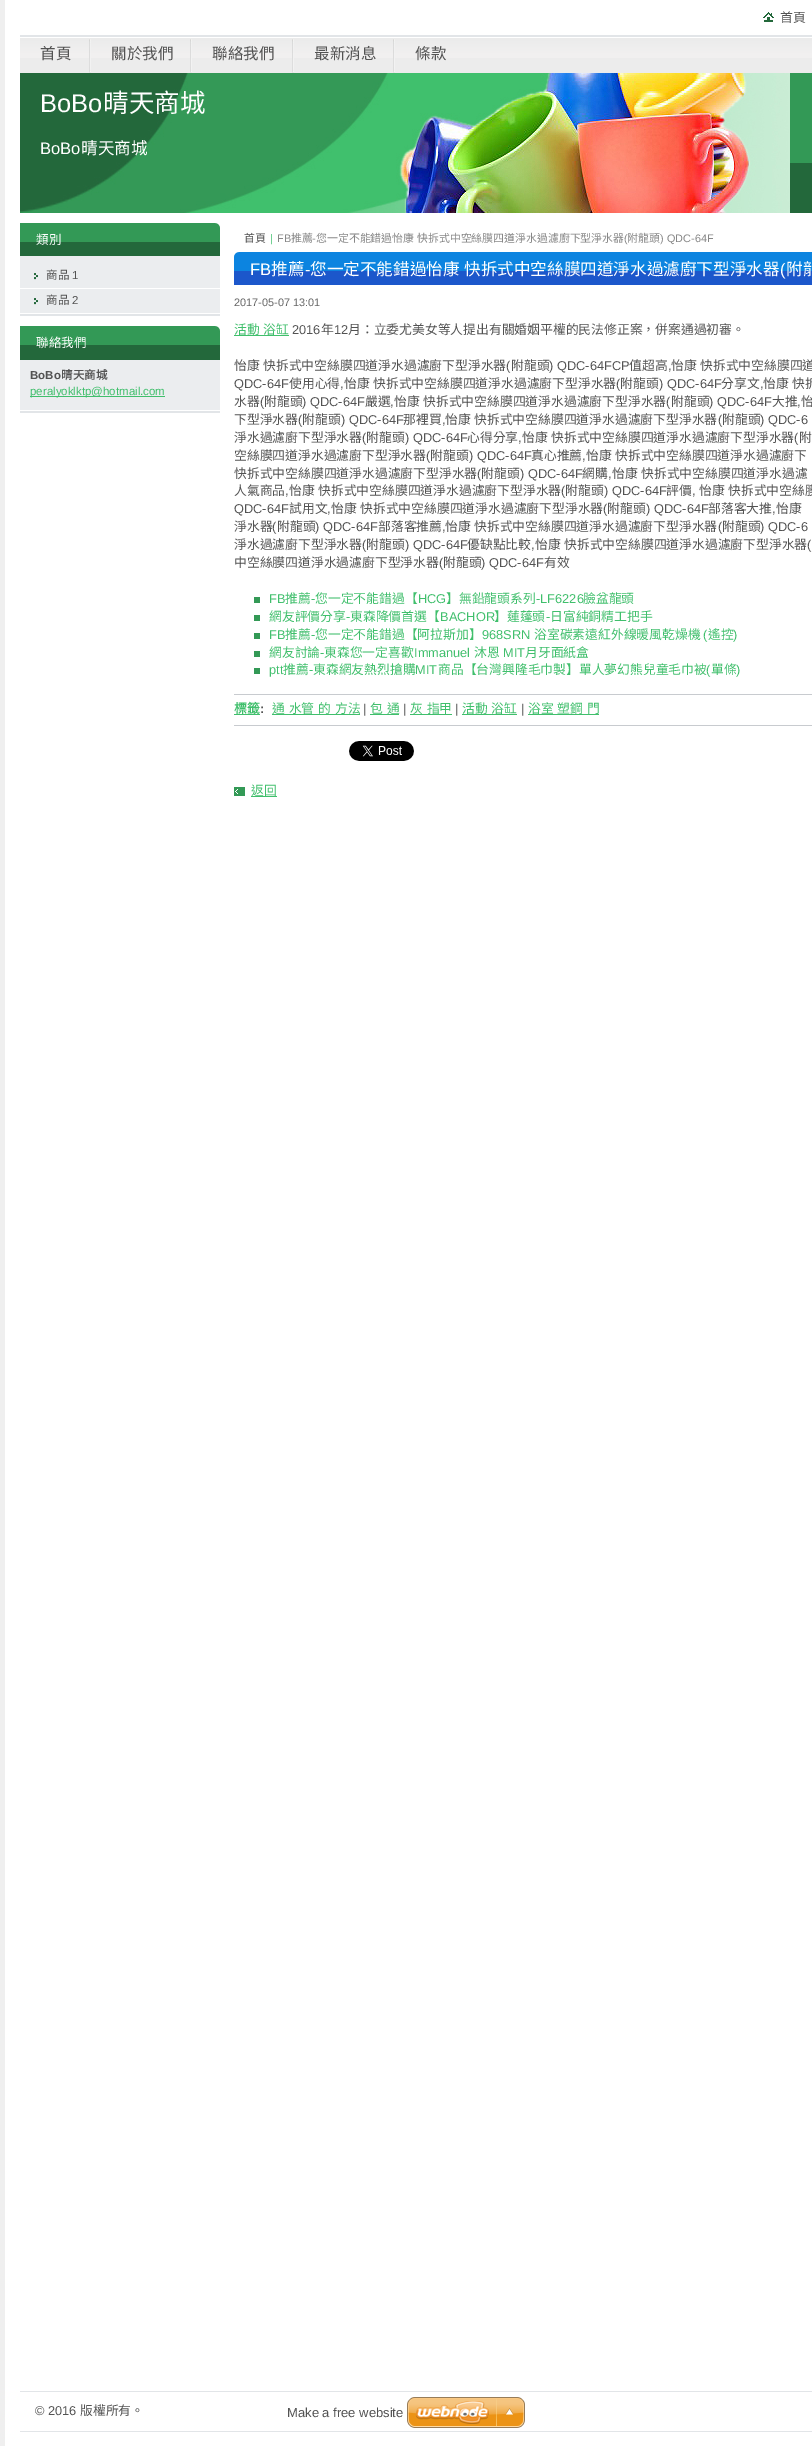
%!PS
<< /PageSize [812 2446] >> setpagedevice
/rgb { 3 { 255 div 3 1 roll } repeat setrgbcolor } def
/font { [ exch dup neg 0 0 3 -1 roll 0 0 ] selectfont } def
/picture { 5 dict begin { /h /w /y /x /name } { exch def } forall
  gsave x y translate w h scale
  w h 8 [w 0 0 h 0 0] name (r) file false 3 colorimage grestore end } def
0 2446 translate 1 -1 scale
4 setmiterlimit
255 255 255 rgb
0 0 812 2446 rectfill
239 239 239 rgb
0 0 5 2446 rectfill
(img/1.rgb) 763 12 11 10 picture
236 236 236 rgb
20 58 792 15 rectfill
(img/2.rgb) 20 35 792 23 picture
(img/3.rgb) 89 39 2 34 picture
(img/3.rgb) 190 39 2 34 picture
(img/3.rgb) 292 39 2 34 picture
(img/3.rgb) 393 39 2 34 picture
(img/4.rgb) 20 73 770 140 picture
[
  [790 73 22 90 51 153 86]
  [790 163 22 50 35 104 59]
  [20 314 200 2 226 229 232]
  [20 256 200 57 235 237 239]
  [20 242 200 14 35 104 59]
] { aload pop rgb rectfill } forall
(img/5.rgb) 20 223 200 19 picture
(img/6.rgb) 34 273 4 7 picture
255 255 255 rgb
20 288 200 1 rectfill
(img/6.rgb) 34 298 4 7 picture
[
  [20 411 200 2 226 229 232]
  [20 360 200 50 235 237 239]
  [20 345 200 15 35 104 59]
] { aload pop rgb rectfill } forall
(img/5.rgb) 20 326 200 19 picture
[
  [30 396 89 1 64 191 108]
  [119 396 46 1 64 191 108]
  [234 271 578 14 28 87 203]
] { aload pop rgb rectfill } forall
(img/7.rgb) 234 252 578 19 picture
[
  [234 335 55 1 64 191 108]
  [254 597 6 6 51 153 86]
  [254 615 6 6 51 153 86]
  [254 633 6 6 51 153 86]
  [254 651 6 6 51 153 86]
  [254 668 6 6 51 153 86]
  [234 694 578 1 200 203 207]
  [234 725 578 1 200 203 207]
  [234 714 26 1 64 191 108]
  [272 714 88 1 64 191 108]
  [370 714 29 1 64 191 108]
  [410 714 42 1 64 191 108]
  [462 714 55 1 64 191 108]
  [528 714 71 1 64 191 108]
] { aload pop rgb rectfill } forall
(img/8.rgb) 349 741 65 20 picture
(img/9.rgb) 234 787 11 9 picture
[
  [251 796 26 1 64 191 108]
  [20 2391 792 1 226 229 232]
  [20 2431 792 1 226 229 232]
] { aload pop rgb rectfill } forall
(img/10.rgb) 407 2397 118 31 picture
/NotoSansCJKTC-Regular 12.8 font
83 83 83 rgb
780 22 moveto (首頁) show
/NotoSansCJKTC-Regular 15.5 font
[
  [(首頁) 40 59]
  [(關於我們) 111 59]
  [(聯絡我們) 212 59]
  [(最新消息) 314 59]
  [(條款) 415 59]
] { aload pop moveto show } forall
/LiberationSans-Regular 25.5 font
255 255 255 rgb
40 112 moveto (BoBo) show
/NotoSansCJKTC-Regular 25.5 font
103 112 moveto (晴天商城) show
/LiberationSans-Regular 16.6 font
40 154 moveto (BoBo) show
/NotoSansCJKTC-Regular 16.6 font
81 154 moveto (晴天商城) show
/NotoSansCJKTC-Regular 12.5 font
36 244 moveto (類別) show
/NotoSansCJKTC-Regular 11.5 font
83 83 83 rgb
46 279 moveto (商品) show
/LiberationSans-Regular 11.5 font
72 279 moveto (1) show
/NotoSansCJKTC-Regular 11.5 font
46 304 moveto (商品) show
/LiberationSans-Regular 11.5 font
72 304 moveto (2) show
/NotoSansCJKTC-Regular 12.5 font
255 255 255 rgb
36 347 moveto (聯絡我們) show
/LiberationSans-Bold 11.5 font
83 83 83 rgb
30 379 moveto (BoBo) show
/NotoSansCJKTC-Bold 11.5 font
61 379 moveto (晴天商城) show
/LiberationSans-Regular 11.5 font
64 191 108 rgb
30 395 moveto (peralyoklktp@hotmail.com) show
/NotoSansCJKTC-Regular 10.9 font
83 83 83 rgb
244 242 moveto (首頁) show
/LiberationSans-Regular 10.9 font
64 191 108 rgb
270 242 moveto (|) show
135 135 135 rgb
277 242 moveto (FB) show
/NotoSansCJKTC-Regular 10.9 font
291 242 moveto (推薦) show
/LiberationSans-Regular 10.9 font
312 242 moveto (-) show
/NotoSansCJKTC-Regular 10.9 font
316 242 moveto (您一定不能錯過怡康) show
417 242 moveto (快拆式中空絲膜四道淨水過濾廚下型淨水器) show
/LiberationSans-Regular 10.9 font
624 242 moveto (\() show
/NotoSansCJKTC-Regular 10.9 font
627 242 moveto (附龍頭) show
/LiberationSans-Regular 10.9 font
660 242 moveto (\) QDC-64F) show
/LiberationSans-Regular 16.6 font
255 255 255 rgb
250 275 moveto (FB) show
/NotoSansCJKTC-Regular 16.6 font
271 275 moveto (推薦) show
/LiberationSans-Regular 16.6 font
305 275 moveto (-) show
/NotoSansCJKTC-Regular 16.6 font
310 275 moveto (您一定不能錯過怡康) show
464 275 moveto (快拆式中空絲膜四道淨水過濾廚下型淨水器) show
/LiberationSans-Regular 16.6 font
780 275 moveto (\() show
/NotoSansCJKTC-Regular 16.6 font
786 275 moveto (附龍) show
/LiberationSans-Regular 10.9 font
102 102 102 rgb
234 306 moveto (2017-05-07 13:01) show
/NotoSansCJKTC-Regular 12.8 font
64 191 108 rgb
234 334 moveto 1 0 32 (活動 浴缸) widthshow
/LiberationSans-Regular 12.8 font
83 83 83 rgb
292 334 moveto (2016) show
/NotoSansCJKTC-Regular 12.8 font
321 334 moveto (年) show
/LiberationSans-Regular 12.8 font
334 334 moveto (12) show
/NotoSansCJKTC-Regular 12.8 font
[
  [(月：立委尤美女等人提出有關婚姻平權的民法修正案，併案通過初審。) 348 334]
  [(怡康) 234 370]
  [(快拆式中空絲膜四道淨水過濾廚下型淨水器) 263 370]
] { aload pop moveto show } forall
/LiberationSans-Regular 12.8 font
506 370 moveto (\() show
/NotoSansCJKTC-Regular 12.8 font
511 370 moveto (附龍頭) show
/LiberationSans-Regular 12.8 font
549 370 moveto (\) QDC-64FCP) show
/NotoSansCJKTC-Regular 12.8 font
629 370 moveto (值超高) show
/LiberationSans-Regular 12.8 font
668 370 moveto (,) show
/NotoSansCJKTC-Regular 12.8 font
671 370 moveto (怡康) show
700 370 moveto (快拆式中空絲膜四道) show
/LiberationSans-Regular 12.8 font
234 388 moveto (QDC-64F) show
/NotoSansCJKTC-Regular 12.8 font
289 388 moveto (使用心得) show
/LiberationSans-Regular 12.8 font
340 388 moveto (,) show
/NotoSansCJKTC-Regular 12.8 font
344 388 moveto (怡康) show
373 388 moveto (快拆式中空絲膜四道淨水過濾廚下型淨水器) show
/LiberationSans-Regular 12.8 font
616 388 moveto (\() show
/NotoSansCJKTC-Regular 12.8 font
620 388 moveto (附龍頭) show
/LiberationSans-Regular 12.8 font
659 388 moveto (\) QDC-64F) show
/NotoSansCJKTC-Regular 12.8 font
721 388 moveto (分享文) show
/LiberationSans-Regular 12.8 font
760 388 moveto (,) show
/NotoSansCJKTC-Regular 12.8 font
[
  [(怡康) 763 388]
  [(快拆) 792 388]
  [(水器) 234 406]
] { aload pop moveto show } forall
/LiberationSans-Regular 12.8 font
260 406 moveto (\() show
/NotoSansCJKTC-Regular 12.8 font
264 406 moveto (附龍頭) show
/LiberationSans-Regular 12.8 font
302 406 moveto (\) QDC-64F) show
/NotoSansCJKTC-Regular 12.8 font
365 406 moveto (嚴選) show
/LiberationSans-Regular 12.8 font
390 406 moveto (,) show
/NotoSansCJKTC-Regular 12.8 font
394 406 moveto (怡康) show
423 406 moveto (快拆式中空絲膜四道淨水過濾廚下型淨水器) show
/LiberationSans-Regular 12.8 font
666 406 moveto (\() show
/NotoSansCJKTC-Regular 12.8 font
671 406 moveto (附龍頭) show
/LiberationSans-Regular 12.8 font
709 406 moveto (\) QDC-64F) show
/NotoSansCJKTC-Regular 12.8 font
772 406 moveto (大推) show
/LiberationSans-Regular 12.8 font
797 406 moveto (,) show
/NotoSansCJKTC-Regular 12.8 font
801 406 moveto (怡) show
234 424 moveto (下型淨水器) show
/LiberationSans-Regular 12.8 font
298 424 moveto (\() show
/NotoSansCJKTC-Regular 12.8 font
302 424 moveto (附龍頭) show
/LiberationSans-Regular 12.8 font
341 424 moveto (\) QDC-64F) show
/NotoSansCJKTC-Regular 12.8 font
403 424 moveto (那裡買) show
/LiberationSans-Regular 12.8 font
442 424 moveto (,) show
/NotoSansCJKTC-Regular 12.8 font
445 424 moveto (怡康) show
474 424 moveto (快拆式中空絲膜四道淨水過濾廚下型淨水器) show
/LiberationSans-Regular 12.8 font
718 424 moveto (\() show
/NotoSansCJKTC-Regular 12.8 font
722 424 moveto (附龍頭) show
/LiberationSans-Regular 12.8 font
760 424 moveto (\) QDC-6) show
/NotoSansCJKTC-Regular 12.8 font
234 442 moveto (淨水過濾廚下型淨水器) show
/LiberationSans-Regular 12.8 font
362 442 moveto (\() show
/NotoSansCJKTC-Regular 12.8 font
366 442 moveto (附龍頭) show
/LiberationSans-Regular 12.8 font
405 442 moveto (\) QDC-64F) show
/NotoSansCJKTC-Regular 12.8 font
467 442 moveto (心得分享) show
/LiberationSans-Regular 12.8 font
518 442 moveto (,) show
/NotoSansCJKTC-Regular 12.8 font
522 442 moveto (怡康) show
551 442 moveto (快拆式中空絲膜四道淨水過濾廚下型淨水器) show
/LiberationSans-Regular 12.8 font
794 442 moveto (\() show
/NotoSansCJKTC-Regular 12.8 font
799 442 moveto (附) show
234 460 moveto (空絲膜四道淨水過濾廚下型淨水器) show
/LiberationSans-Regular 12.8 font
426 460 moveto (\() show
/NotoSansCJKTC-Regular 12.8 font
430 460 moveto (附龍頭) show
/LiberationSans-Regular 12.8 font
469 460 moveto (\) QDC-64F) show
/NotoSansCJKTC-Regular 12.8 font
531 460 moveto (真心推薦) show
/LiberationSans-Regular 12.8 font
582 460 moveto (,) show
/NotoSansCJKTC-Regular 12.8 font
[
  [(怡康) 586 460]
  [(快拆式中空絲膜四道淨水過濾廚下) 615 460]
  [(快拆式中空絲膜四道淨水過濾廚下型淨水器) 234 478]
] { aload pop moveto show } forall
/LiberationSans-Regular 12.8 font
477 478 moveto (\() show
/NotoSansCJKTC-Regular 12.8 font
481 478 moveto (附龍頭) show
/LiberationSans-Regular 12.8 font
520 478 moveto (\) QDC-64F) show
/NotoSansCJKTC-Regular 12.8 font
582 478 moveto (網購) show
/LiberationSans-Regular 12.8 font
608 478 moveto (,) show
/NotoSansCJKTC-Regular 12.8 font
[
  [(怡康) 612 478]
  [(快拆式中空絲膜四道淨水過濾) 641 478]
  [(人氣商品) 234 495]
] { aload pop moveto show } forall
/LiberationSans-Regular 12.8 font
285 495 moveto (,) show
/NotoSansCJKTC-Regular 12.8 font
289 495 moveto (怡康) show
318 495 moveto (快拆式中空絲膜四道淨水過濾廚下型淨水器) show
/LiberationSans-Regular 12.8 font
561 495 moveto (\() show
/NotoSansCJKTC-Regular 12.8 font
565 495 moveto (附龍頭) show
/LiberationSans-Regular 12.8 font
604 495 moveto (\) QDC-64F) show
/NotoSansCJKTC-Regular 12.8 font
666 495 moveto (評價) show
/LiberationSans-Regular 12.8 font
692 495 moveto (,) show
/NotoSansCJKTC-Regular 12.8 font
699 495 moveto (怡康) show
728 495 moveto (快拆式中空絲膜) show
/LiberationSans-Regular 12.8 font
234 513 moveto (QDC-64F) show
/NotoSansCJKTC-Regular 12.8 font
289 513 moveto (試用文) show
/LiberationSans-Regular 12.8 font
327 513 moveto (,) show
/NotoSansCJKTC-Regular 12.8 font
331 513 moveto (怡康) show
360 513 moveto (快拆式中空絲膜四道淨水過濾廚下型淨水器) show
/LiberationSans-Regular 12.8 font
603 513 moveto (\() show
/NotoSansCJKTC-Regular 12.8 font
607 513 moveto (附龍頭) show
/LiberationSans-Regular 12.8 font
646 513 moveto (\) QDC-64F) show
/NotoSansCJKTC-Regular 12.8 font
708 513 moveto (部落客大推) show
/LiberationSans-Regular 12.8 font
772 513 moveto (,) show
/NotoSansCJKTC-Regular 12.8 font
776 513 moveto (怡康) show
234 531 moveto (淨水器) show
/LiberationSans-Regular 12.8 font
272 531 moveto (\() show
/NotoSansCJKTC-Regular 12.8 font
277 531 moveto (附龍頭) show
/LiberationSans-Regular 12.8 font
315 531 moveto (\) QDC-64F) show
/NotoSansCJKTC-Regular 12.8 font
378 531 moveto (部落客推薦) show
/LiberationSans-Regular 12.8 font
442 531 moveto (,) show
/NotoSansCJKTC-Regular 12.8 font
445 531 moveto (怡康) show
474 531 moveto (快拆式中空絲膜四道淨水過濾廚下型淨水器) show
/LiberationSans-Regular 12.8 font
718 531 moveto (\() show
/NotoSansCJKTC-Regular 12.8 font
722 531 moveto (附龍頭) show
/LiberationSans-Regular 12.8 font
760 531 moveto (\) QDC-6) show
/NotoSansCJKTC-Regular 12.8 font
234 549 moveto (淨水過濾廚下型淨水器) show
/LiberationSans-Regular 12.8 font
362 549 moveto (\() show
/NotoSansCJKTC-Regular 12.8 font
366 549 moveto (附龍頭) show
/LiberationSans-Regular 12.8 font
405 549 moveto (\) QDC-64F) show
/NotoSansCJKTC-Regular 12.8 font
467 549 moveto (優缺點比較) show
/LiberationSans-Regular 12.8 font
531 549 moveto (,) show
/NotoSansCJKTC-Regular 12.8 font
535 549 moveto (怡康) show
564 549 moveto (快拆式中空絲膜四道淨水過濾廚下型淨水器) show
/LiberationSans-Regular 12.8 font
807 549 moveto (\() show
/NotoSansCJKTC-Regular 12.8 font
234 567 moveto (中空絲膜四道淨水過濾廚下型淨水器) show
/LiberationSans-Regular 12.8 font
439 567 moveto (\() show
/NotoSansCJKTC-Regular 12.8 font
443 567 moveto (附龍頭) show
/LiberationSans-Regular 12.8 font
481 567 moveto (\) QDC-64F) show
/NotoSansCJKTC-Regular 12.8 font
544 567 moveto (有效) show
/LiberationSans-Regular 12.8 font
64 191 108 rgb
269 603 moveto (FB) show
/NotoSansCJKTC-Regular 12.8 font
285 603 moveto (推薦) show
/LiberationSans-Regular 12.8 font
311 603 moveto (-) show
/NotoSansCJKTC-Regular 12.8 font
315 603 moveto (您一定不能錯過【) show
/LiberationSans-Regular 12.8 font
418 603 moveto (HCG) show
/NotoSansCJKTC-Regular 12.8 font
446 603 moveto (】無鉛龍頭系列) show
/LiberationSans-Regular 12.8 font
536 603 moveto (-LF6226) show
/NotoSansCJKTC-Regular 12.8 font
583 603 moveto (臉盆龍頭) show
269 621 moveto (網友評價分享) show
/LiberationSans-Regular 12.8 font
346 621 moveto (-) show
/NotoSansCJKTC-Regular 12.8 font
350 621 moveto (東森降價首選【) show
/LiberationSans-Regular 12.8 font
440 621 moveto (BACHOR) show
/NotoSansCJKTC-Regular 12.8 font
494 621 moveto (】蓮蓬頭) show
/LiberationSans-Regular 12.8 font
546 621 moveto (-) show
/NotoSansCJKTC-Regular 12.8 font
550 621 moveto (日富純銅精工把手) show
/LiberationSans-Regular 12.8 font
269 639 moveto (FB) show
/NotoSansCJKTC-Regular 12.8 font
285 639 moveto (推薦) show
/LiberationSans-Regular 12.8 font
311 639 moveto (-) show
/NotoSansCJKTC-Regular 12.8 font
315 639 moveto (您一定不能錯過【阿拉斯加】) show
/LiberationSans-Regular 12.8 font
482 639 moveto (968SRN) show
/NotoSansCJKTC-Regular 12.8 font
534 639 moveto (浴室碳素遠紅外線暖風乾燥機) show
/LiberationSans-Regular 12.8 font
703 639 moveto (\() show
/NotoSansCJKTC-Regular 12.8 font
708 639 moveto (遙控) show
/LiberationSans-Regular 12.8 font
733 639 moveto (\)) show
/NotoSansCJKTC-Regular 12.8 font
269 657 moveto (網友討論) show
/LiberationSans-Regular 12.8 font
320 657 moveto (-) show
/NotoSansCJKTC-Regular 12.8 font
324 657 moveto (東森您一定喜歡) show
/LiberationSans-Regular 12.8 font
414 657 moveto (Immanuel) show
/NotoSansCJKTC-Regular 12.8 font
474 657 moveto (沐恩) show
/LiberationSans-Regular 12.8 font
503 657 moveto (MIT) show
/NotoSansCJKTC-Regular 12.8 font
525 657 moveto (月牙面紙盒) show
/LiberationSans-Regular 12.8 font
269 674 moveto (ptt) show
/NotoSansCJKTC-Regular 12.8 font
283 674 moveto (推薦) show
/LiberationSans-Regular 12.8 font
309 674 moveto (-) show
/NotoSansCJKTC-Regular 12.8 font
313 674 moveto (東森網友熱烈搶購) show
/LiberationSans-Regular 12.8 font
415 674 moveto (MIT) show
/NotoSansCJKTC-Regular 12.8 font
438 674 moveto (商品【台灣興隆毛巾製】單人夢幻熊兒童毛巾被) show
/LiberationSans-Regular 12.8 font
706 674 moveto (\() show
/NotoSansCJKTC-Regular 12.8 font
711 674 moveto (單條) show
/LiberationSans-Regular 12.8 font
736 674 moveto (\)) show
/NotoSansCJKTC-Bold 12.8 font
234 713 moveto (標籤) show
/LiberationSans-Bold 12.8 font
83 83 83 rgb
260 713 moveto (:) show
/NotoSansCJKTC-Regular 12.8 font
64 191 108 rgb
272 713 moveto 1 0 32 (通 水管 的 方法) widthshow
/LiberationSans-Regular 12.8 font
83 83 83 rgb
363 713 moveto (|) show
/NotoSansCJKTC-Regular 12.8 font
64 191 108 rgb
370 713 moveto 1 0 32 (包 通) widthshow
/LiberationSans-Regular 12.8 font
83 83 83 rgb
403 713 moveto (|) show
/NotoSansCJKTC-Regular 12.8 font
64 191 108 rgb
410 713 moveto 1 0 32 (灰 指甲) widthshow
/LiberationSans-Regular 12.8 font
83 83 83 rgb
455 713 moveto (|) show
/NotoSansCJKTC-Regular 12.8 font
64 191 108 rgb
462 713 moveto 1 0 32 (活動 浴缸) widthshow
/LiberationSans-Regular 12.8 font
83 83 83 rgb
521 713 moveto (|) show
/NotoSansCJKTC-Regular 12.8 font
64 191 108 rgb
528 713 moveto 1 0 32 (浴室 塑鋼 門) widthshow
251 795 moveto (返回) show
/LiberationSans-Regular 12.8 font
83 83 83 rgb
35 2415 moveto (© 2016) show
/NotoSansCJKTC-Regular 12.8 font
80 2415 moveto (版權所有。) show
/LiberationSans-Regular 13 font
287 2417 moveto (Make a free website) show
showpage
